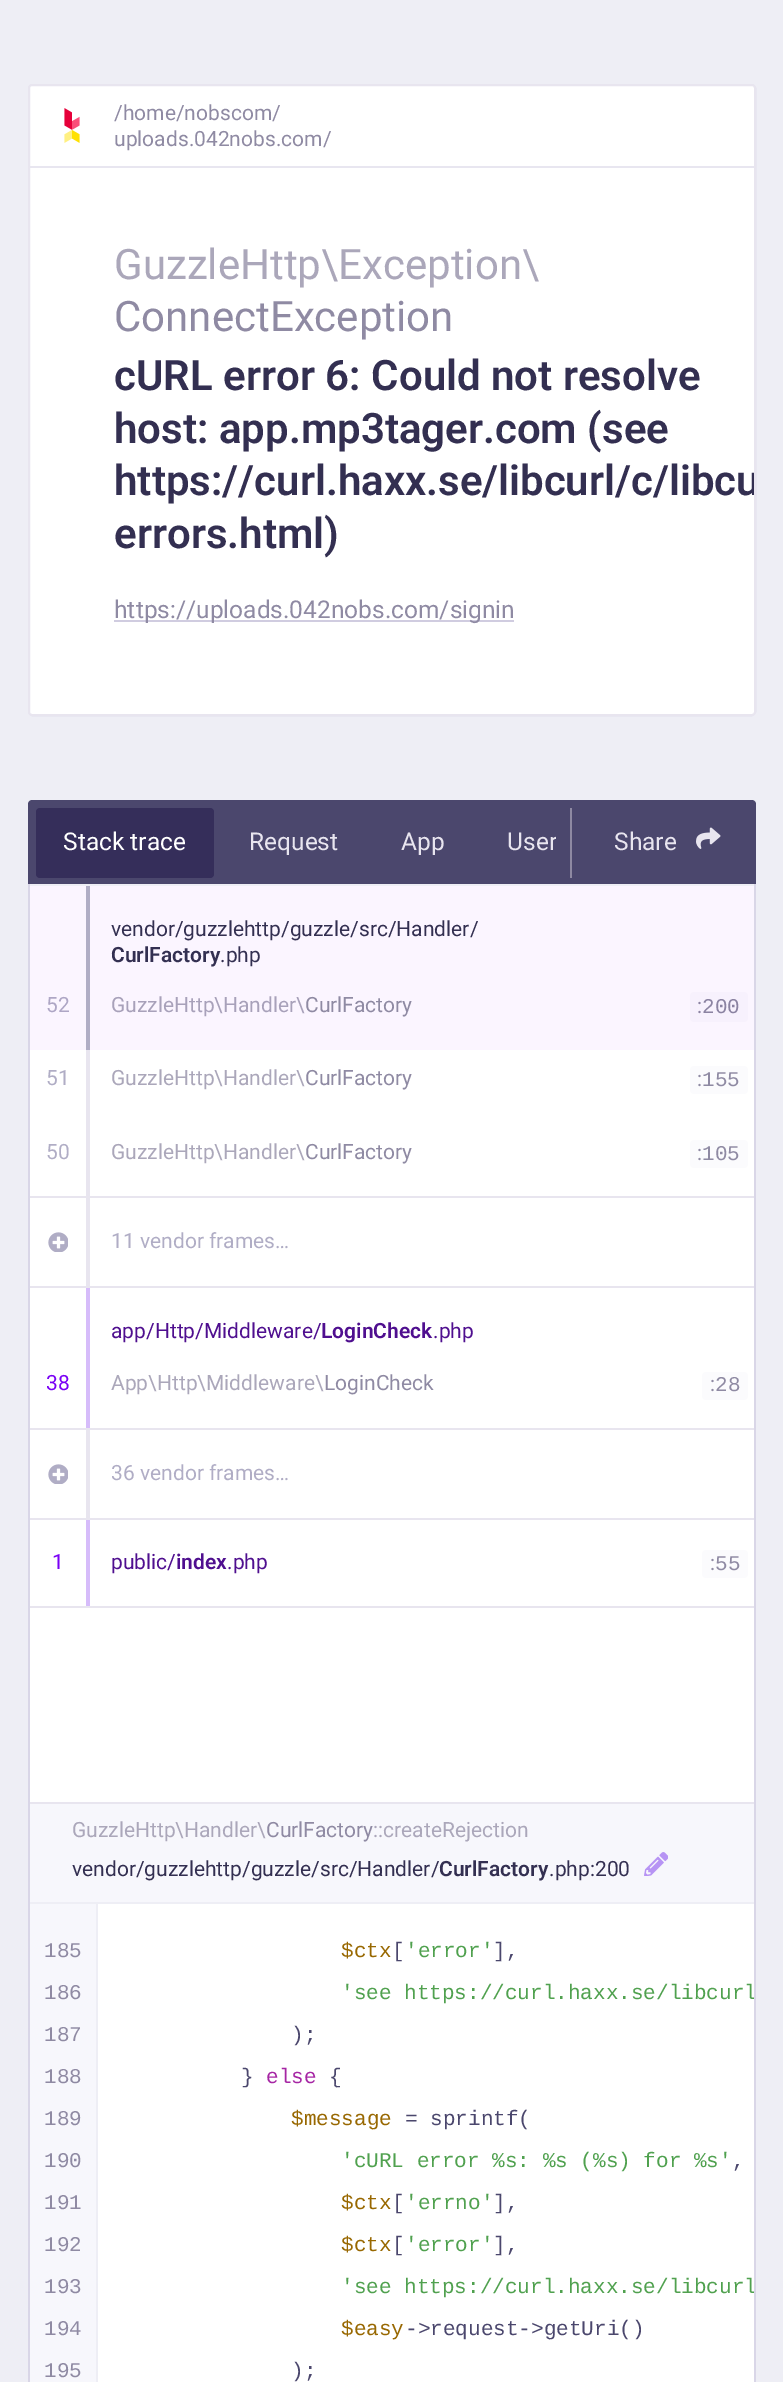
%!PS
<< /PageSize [783 2382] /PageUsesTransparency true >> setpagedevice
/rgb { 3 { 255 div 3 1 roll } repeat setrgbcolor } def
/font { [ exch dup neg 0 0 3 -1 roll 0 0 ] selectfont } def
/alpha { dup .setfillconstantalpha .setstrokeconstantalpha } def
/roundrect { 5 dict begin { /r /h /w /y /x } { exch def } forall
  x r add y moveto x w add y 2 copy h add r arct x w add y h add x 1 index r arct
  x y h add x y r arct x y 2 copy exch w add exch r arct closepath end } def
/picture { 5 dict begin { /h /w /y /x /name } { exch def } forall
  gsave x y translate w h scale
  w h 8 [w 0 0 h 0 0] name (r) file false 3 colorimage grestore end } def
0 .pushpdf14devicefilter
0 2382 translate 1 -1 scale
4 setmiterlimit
238 238 245 rgb
0 0 783 2382 rectfill
255 255 255 rgb
28 84 728 632 4 roundrect fill
0.1 alpha
25 0 100 rgb
2 setlinewidth
29 85 726 630 3 roundrect stroke
1 alpha
232 230 240 rgb
30 166 724 2 rectfill
(img/1.rgb) 64 108 16 35 picture
208 204 224 rgb
114 620 400 2 rectfill
75 71 109 rgb
32 800 moveto 752 800 lineto 754 800 756 802 756 804 curveto 756 884 lineto 28 884 lineto 28 804 lineto 28 802 30 800 32 800 curveto closepath fill
53 46 90 rgb
36 808 178 70 4 roundrect fill
142 137 162 rgb
570 808 2 70 rectfill
(img/2.rgb) 696 827 25 22 picture
217 214 231 rgb
756 884 moveto 756 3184 lineto 754 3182 lineto 754 884 lineto closepath fill
28 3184 moveto 28 884 lineto 30 884 lineto 30 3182 lineto closepath fill
[
  [30 1050 724 752 255 255 255]
  [30 1802 724 2 232 229 239]
  [30 1196 724 2 232 229 239]
  [30 886 724 164 251 245 255]
  [86 886 4 164 176 173 197]
] { aload pop rgb rectfill } forall
247 241 253 rgb
690 992 58 30 4 roundrect fill
232 229 239 rgb
86 1050 4 146 rectfill
251 251 253 rgb
690 1066 58 28 4 roundrect fill
690 1140 58 28 4 roundrect fill
232 229 239 rgb
30 1286 724 2 rectfill
(img/3.rgb) 48 1232 20 20 picture
[
  [86 1198 4 88 232 229 239]
  [30 1428 724 2 232 229 239]
  [86 1288 4 140 214 188 250]
] { aload pop rgb rectfill } forall
251 251 253 rgb
702 1372 46 28 4 roundrect fill
232 229 239 rgb
30 1518 724 2 rectfill
(img/3.rgb) 48 1464 20 20 picture
[
  [86 1430 4 88 232 229 239]
  [30 1606 724 2 232 229 239]
  [86 1520 4 86 214 188 250]
] { aload pop rgb rectfill } forall
251 251 253 rgb
702 1550 46 28 4 roundrect fill
247 247 252 rgb
30 1804 724 98 rectfill
(img/4.rgb) 644 1852 24 24 picture
255 255 255 rgb
98 1904 656 478 rectfill
247 247 252 rgb
30 1904 66 478 rectfill
/Roboto-Regular 21 font
143 138 163 rgb
114 120 moveto (/home/nobscom/) show
114 146 moveto (uploads.042nobs.com/) show
/Roboto-Regular 42 font
171 167 186 rgb
114 279 moveto (GuzzleHttp\\Exception\\) show
143 138 163 rgb
114 331 moveto (ConnectException) show
/Roboto-SemiBold 42 font
51 47 81 rgb
114 390 moveto (cURL error 6: Could not resolve) show
114 443 moveto (host: app.mp3tager.com \(see) show
gsave
114 350 640 210 rectclip
114 495 moveto (https://curl.haxx.se/libcurl/c/libcu) show
grestore
114 548 moveto (errors.html\)) show
/Roboto-Regular 24.5 font
143 138 163 rgb
114 618 moveto (https://uploads.042nobs.com/signin) show
255 255 255 rgb
63 850 moveto (Stack trace) show
232 229 239 rgb
249 850 moveto (Request) show
401 850 moveto (App) show
gsave
36 808 520 70 rectclip
507 850 moveto (User) show
grestore
614 850 moveto (Share) show
/Roboto-Regular 21 font
174 166 197 rgb
46 1012 moveto (52) show
51 47 81 rgb
111 936 moveto (vendor/guzzlehttp/guzzle/src/Handler/) show
/Roboto-SemiBold 21 font
111 962 moveto (CurlFactory) show
/Roboto-Regular 21 font
220 962 moveto (.php) show
168 161 186 rgb
111 1012 moveto (GuzzleHttp\\Handler\\) show
143 138 163 rgb
305 1012 moveto (CurlFactory) show
139 131 162 rgb
697 1013 moveto (:) show
/LiberationMono-Regular 21 font
702 1013 moveto (200) show
/Roboto-Regular 21 font
176 173 197 rgb
46 1085 moveto (51) show
171 167 186 rgb
111 1085 moveto (GuzzleHttp\\Handler\\) show
143 138 163 rgb
305 1085 moveto (CurlFactory) show
697 1086 moveto (:) show
/LiberationMono-Regular 21 font
702 1086 moveto (155) show
/Roboto-Regular 21 font
176 173 197 rgb
46 1159 moveto (50) show
171 167 186 rgb
111 1159 moveto (GuzzleHttp\\Handler\\) show
143 138 163 rgb
305 1159 moveto (CurlFactory) show
697 1160 moveto (:) show
/LiberationMono-Regular 21 font
702 1160 moveto (105) show
/Roboto-Regular 21 font
176 173 197 rgb
111 1248 moveto (11 vendor frames…) show
121 0 245 rgb
46 1390 moveto (38) show
79 15 143 rgb
111 1338 moveto (app/Http/Middleware/) show
/Roboto-SemiBold 21 font
321 1338 moveto (LoginCheck) show
/Roboto-Regular 21 font
433 1338 moveto (.php) show
171 167 186 rgb
111 1390 moveto (App\\Http\\Middleware\\) show
143 138 163 rgb
324 1390 moveto (LoginCheck) show
710 1391 moveto (:) show
/LiberationMono-Regular 21 font
715 1391 moveto (28) show
/Roboto-Regular 21 font
176 173 197 rgb
111 1480 moveto (36 vendor frames…) show
121 0 245 rgb
52 1569 moveto (1) show
79 15 143 rgb
111 1569 moveto (public/) show
/Roboto-SemiBold 21 font
176 1569 moveto (index) show
/Roboto-Regular 21 font
227 1569 moveto (.php) show
143 138 163 rgb
710 1570 moveto (:) show
/LiberationMono-Regular 21 font
715 1570 moveto (55) show
/Roboto-Regular 21 font
171 167 186 rgb
72 1837 moveto (GuzzleHttp\\Handler\\) show
143 138 163 rgb
266 1837 moveto (CurlFactory) show
171 167 186 rgb
373 1837 moveto (::createRejection) show
51 47 81 rgb
72 1876 moveto (vendor/guzzlehttp/guzzle/src/Handler/) show
/Roboto-SemiBold 21 font
439 1876 moveto (CurlFactory) show
/Roboto-Regular 21 font
549 1876 moveto (.php:200) show
/LiberationMono-Regular 21 font
143 138 163 rgb
[
  [(185) 44 1957]
  [(186) 44 1999]
  [(187) 44 2041]
  [(188) 44 2083]
  [(189) 44 2125]
  [(190) 44 2167]
  [(191) 44 2209]
  [(192) 44 2251]
  [(193) 44 2293]
  [(194) 44 2335]
  [(195) 44 2377]
] { aload pop moveto show } forall
152 104 1 rgb
341 1957 moveto ($ctx) show
75 71 109 rgb
392 1957 moveto ([) show
80 161 79 rgb
405 1957 moveto ('error') show
75 71 109 rgb
493 1957 moveto (],) show
gsave
30 1904 724 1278 rectclip
80 161 79 rgb
341 1999 moveto ('see https://curl.haxx.se/libcurl) show
grestore
291 2041 moveto (\);) show
241 2083 moveto (}) show
166 38 164 rgb
266 2083 moveto (else) show
75 71 109 rgb
329 2083 moveto ({) show
152 104 1 rgb
291 2125 moveto ($message) show
75 71 109 rgb
405 2125 moveto (= sprintf\() show
80 161 79 rgb
341 2167 moveto ('cURL error %s: %s \(%s\) for %s') show
75 71 109 rgb
732 2167 moveto (,) show
152 104 1 rgb
341 2209 moveto ($ctx) show
75 71 109 rgb
392 2209 moveto ([) show
80 161 79 rgb
405 2209 moveto ('errno') show
75 71 109 rgb
493 2209 moveto (],) show
152 104 1 rgb
341 2251 moveto ($ctx) show
75 71 109 rgb
392 2251 moveto ([) show
80 161 79 rgb
405 2251 moveto ('error') show
75 71 109 rgb
493 2251 moveto (],) show
gsave
30 1904 724 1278 rectclip
80 161 79 rgb
341 2293 moveto ('see https://curl.haxx.se/libcurl) show
grestore
152 104 1 rgb
341 2335 moveto ($easy) show
75 71 109 rgb
405 2335 moveto (->request->getUri\(\)) show
291 2377 moveto (\);) show
.poppdf14devicefilter showpage
